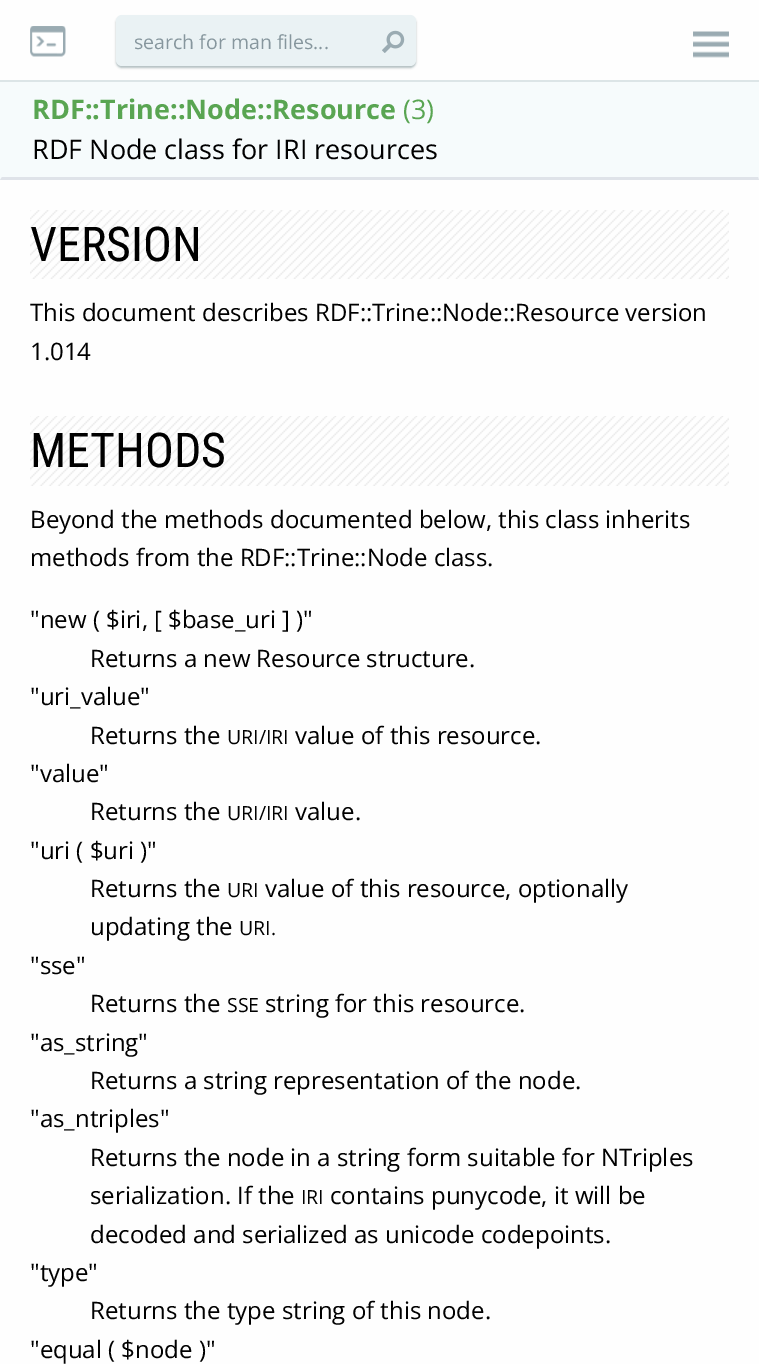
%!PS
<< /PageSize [759 1364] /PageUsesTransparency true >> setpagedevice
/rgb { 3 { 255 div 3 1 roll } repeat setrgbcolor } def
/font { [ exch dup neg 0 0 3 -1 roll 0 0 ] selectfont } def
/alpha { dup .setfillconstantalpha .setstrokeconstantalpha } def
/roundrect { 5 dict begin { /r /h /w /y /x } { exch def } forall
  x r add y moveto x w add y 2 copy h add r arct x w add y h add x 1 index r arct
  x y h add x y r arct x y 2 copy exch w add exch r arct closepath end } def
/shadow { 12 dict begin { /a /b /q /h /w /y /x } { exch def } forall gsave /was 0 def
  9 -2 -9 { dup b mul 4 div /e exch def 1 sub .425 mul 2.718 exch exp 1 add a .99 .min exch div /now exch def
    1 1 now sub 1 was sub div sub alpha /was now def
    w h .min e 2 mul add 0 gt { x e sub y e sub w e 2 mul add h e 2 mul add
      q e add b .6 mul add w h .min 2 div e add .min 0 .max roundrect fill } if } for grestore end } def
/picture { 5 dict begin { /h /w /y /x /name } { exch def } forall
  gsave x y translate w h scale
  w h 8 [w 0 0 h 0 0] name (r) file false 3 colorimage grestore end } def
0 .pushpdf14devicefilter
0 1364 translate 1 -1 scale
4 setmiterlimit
254 254 254 rgb
0 0 759 1364 rectfill
220 229 231 rgb
0 80 759 2 rectfill
(img/1.rgb) 30 26 36 31 picture
6 47 55 rgb
116 17 300 51 6 1 0.3 shadow
234 242 244 rgb
116 15 300 51 6 roundrect fill
(img/2.rgb) 382 30 23 23 picture
(img/3.rgb) 693 31 36 27 picture
246 251 252 rgb
0 82 759 98 rectfill
223 227 233 rgb
759 180 moveto 0 180 lineto 2 177 lineto 758 177 lineto closepath fill
(img/4.rgb) 30 210 699 69 picture
(img/5.rgb) 30 416 699 70 picture
/OpenSans-Regular 19.5 font
134 150 157 rgb
134 49 moveto (search for man files...) show
/OpenSans-Bold 27 font
89 165 82 rgb
32 119 moveto (RDF::Trine::Node::Resource) show
/OpenSans-Regular 27 font
403 119 moveto (\(3\)) show
0 0 0 rgb
32 159 moveto (RDF Node class for IRI resources) show
/RobotoCondensed-Regular 48 font
30 261 moveto (VERSION) show
/OpenSans-Regular 24 font
30 321 moveto (This document describes RDF::Trine::Node::Resource version) show
30 360 moveto (1.014) show
/RobotoCondensed-Regular 48 font
30 467 moveto (METHODS) show
/OpenSans-Regular 24 font
[
  [(Beyond the methods documented below, this class inherits) 30 528]
  [(methods from the RDF::Trine::Node class.) 30 566]
  [("new \( $iri, [ $base_uri ] \)") 30 628]
  [(Returns a new Resource structure.) 90 667]
  [("uri_value") 30 705]
  [(Returns the) 90 744]
] { aload pop moveto show } forall
/OpenSans-Regular 19.5 font
227 744 moveto (URI/IRI) show
/OpenSans-Regular 24 font
[
  [(value of this resource.) 295 744]
  [("value") 30 782]
  [(Returns the) 90 820]
] { aload pop moveto show } forall
/OpenSans-Regular 19.5 font
227 820 moveto (URI/IRI) show
/OpenSans-Regular 24 font
[
  [(value.) 295 820]
  [("uri \( $uri \)") 30 859]
  [(Returns the) 90 897]
] { aload pop moveto show } forall
/OpenSans-Regular 19.5 font
227 897 moveto (URI) show
/OpenSans-Regular 24 font
265 897 moveto (value of this resource, optionally) show
90 935 moveto (updating the) show
/OpenSans-Regular 19.5 font
239 935 moveto (URI.) show
/OpenSans-Regular 24 font
30 974 moveto ("sse") show
90 1012 moveto (Returns the) show
/OpenSans-Regular 19.5 font
227 1012 moveto (SSE) show
/OpenSans-Regular 24 font
[
  [(string for this resource.) 265 1012]
  [("as_string") 30 1051]
  [(Returns a string representation of the node.) 90 1089]
  [("as_ntriples") 30 1127]
  [(Returns the node in a string form suitable for NTriples) 90 1166]
  [(serialization. If the) 90 1204]
] { aload pop moveto show } forall
/OpenSans-Regular 19.5 font
301 1204 moveto (IRI) show
/OpenSans-Regular 24 font
[
  [(contains punycode, it will be) 330 1204]
  [(decoded and serialized as unicode codepoints.) 90 1243]
  [("type") 30 1281]
  [(Returns the type string of this node.) 90 1319]
  [("equal \( $node \)") 30 1358]
] { aload pop moveto show } forall
.poppdf14devicefilter showpage
